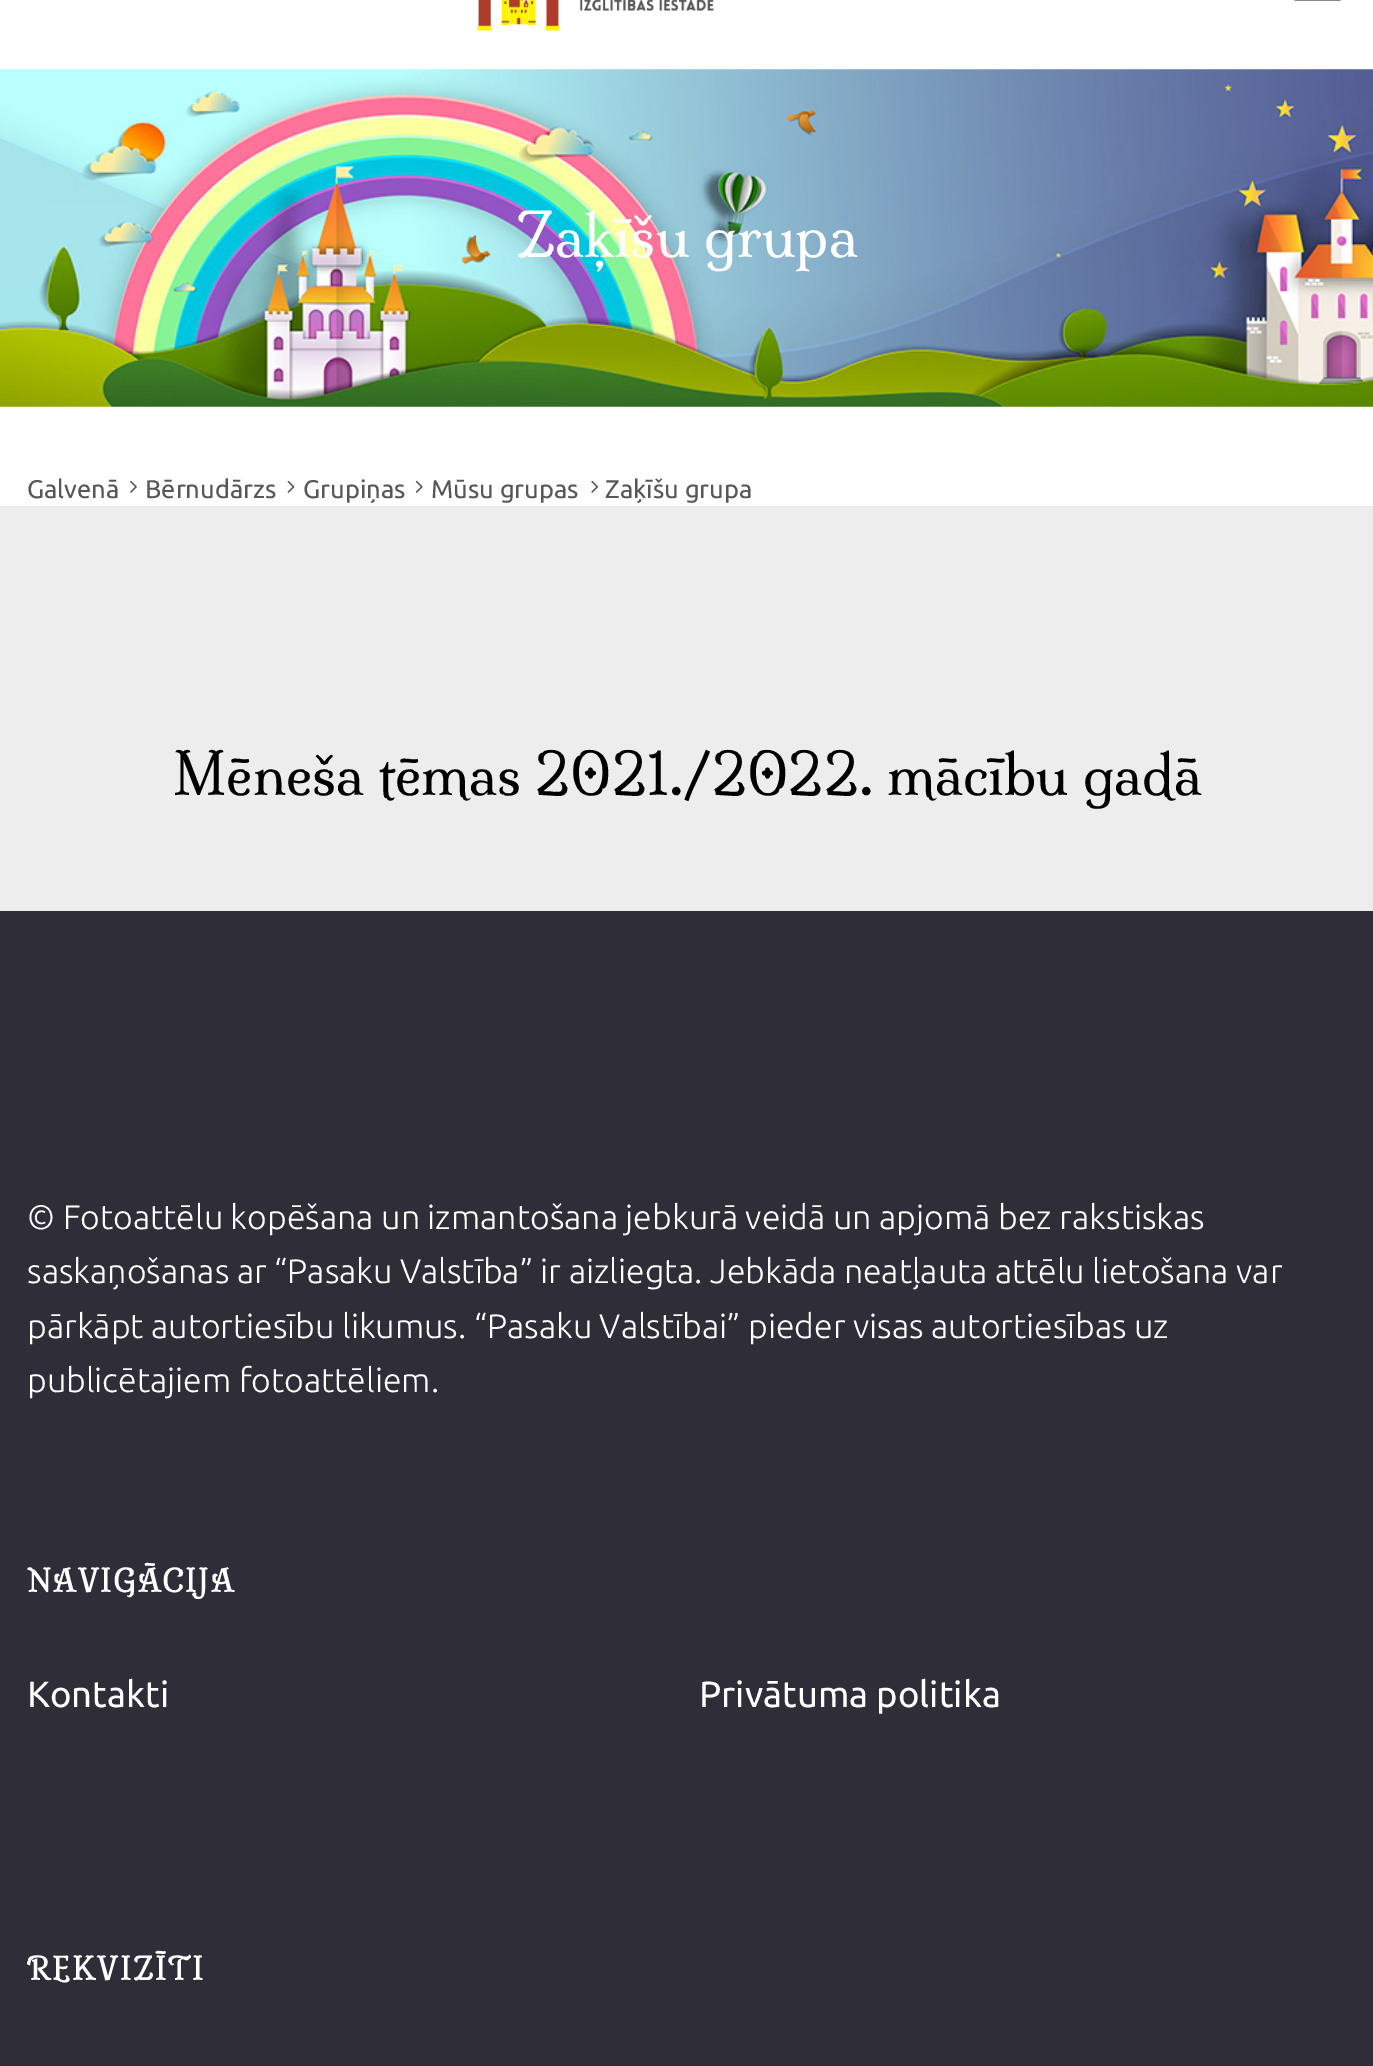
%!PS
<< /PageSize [1373 2066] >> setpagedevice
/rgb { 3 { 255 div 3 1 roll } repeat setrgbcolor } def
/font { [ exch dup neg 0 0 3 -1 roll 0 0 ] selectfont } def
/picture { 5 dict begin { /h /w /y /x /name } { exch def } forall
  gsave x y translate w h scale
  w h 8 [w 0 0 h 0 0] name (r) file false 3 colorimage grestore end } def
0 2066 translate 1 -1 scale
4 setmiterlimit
255 255 255 rgb
0 0 1373 2066 rectfill
(img/1.rgb) 477 0 237 31 picture
(img/2.rgb) 1294 0 47 1 picture
(img/3.rgb) 0 69 1373 338 picture
(img/4.rgb) 130 480 7 13 picture
(img/5.rgb) 287 480 8 13 picture
(img/6.rgb) 415 480 8 13 picture
(img/7.rgb) 591 480 8 13 picture
237 237 237 rgb
0 506 1373 405 rectfill
47 45 56 rgb
0 911 1373 1155 rectfill
/Milonga-Regular 57.5 font
255 255 255 rgb
516 257 moveto (Zaķīšu grupa) show
/Ubuntu-Regular 25.5 font
87 87 87 rgb
[
  [(Galvenā) 27 498]
  [(Bērnudārzs) 145 498]
  [(Grupiņas) 303 498]
  [(Mūsu grupas) 431 498]
  [(Zaķīšu grupa) 605 498]
] { aload pop moveto show } forall
/Milonga-Regular 55.1 font
0 0 0 rgb
173 795 moveto (Mēneša tēmas 2021./2022. mācību gadā) show
/Ubuntu-Light 33.9 font
255 255 255 rgb
27 1229 moveto -0.1 0 32 (© Fotoattēlu kopēšana un izmantošana jebkurā veidā un apjomā bez rakstiskas) widthshow
27 1283 moveto -0.25 0 32 (saskaņošanas ar “Pasaku Valstība” ir aizliegta. Jebkāda neatļauta attēlu lietošana var) widthshow
27 1338 moveto -0.25 0 32 (pārkāpt autortiesību likumus. “Pasaku Valstībai” pieder visas autortiesības uz) widthshow
27 1392 moveto (publicētajiem fotoattēliem.) show
/Milonga-Bold 29.25 font
27 1592 moveto 2.25 0 (NAVIGĀCIJA) ashow
/Ubuntu-Regular 36.5 font
27 1707 moveto (Kontakti) show
699 1707 moveto (Privātuma politika) show
/Milonga-Bold 29.25 font
27 1980 moveto 2.25 0 (REKVIZĪTI) ashow
showpage
